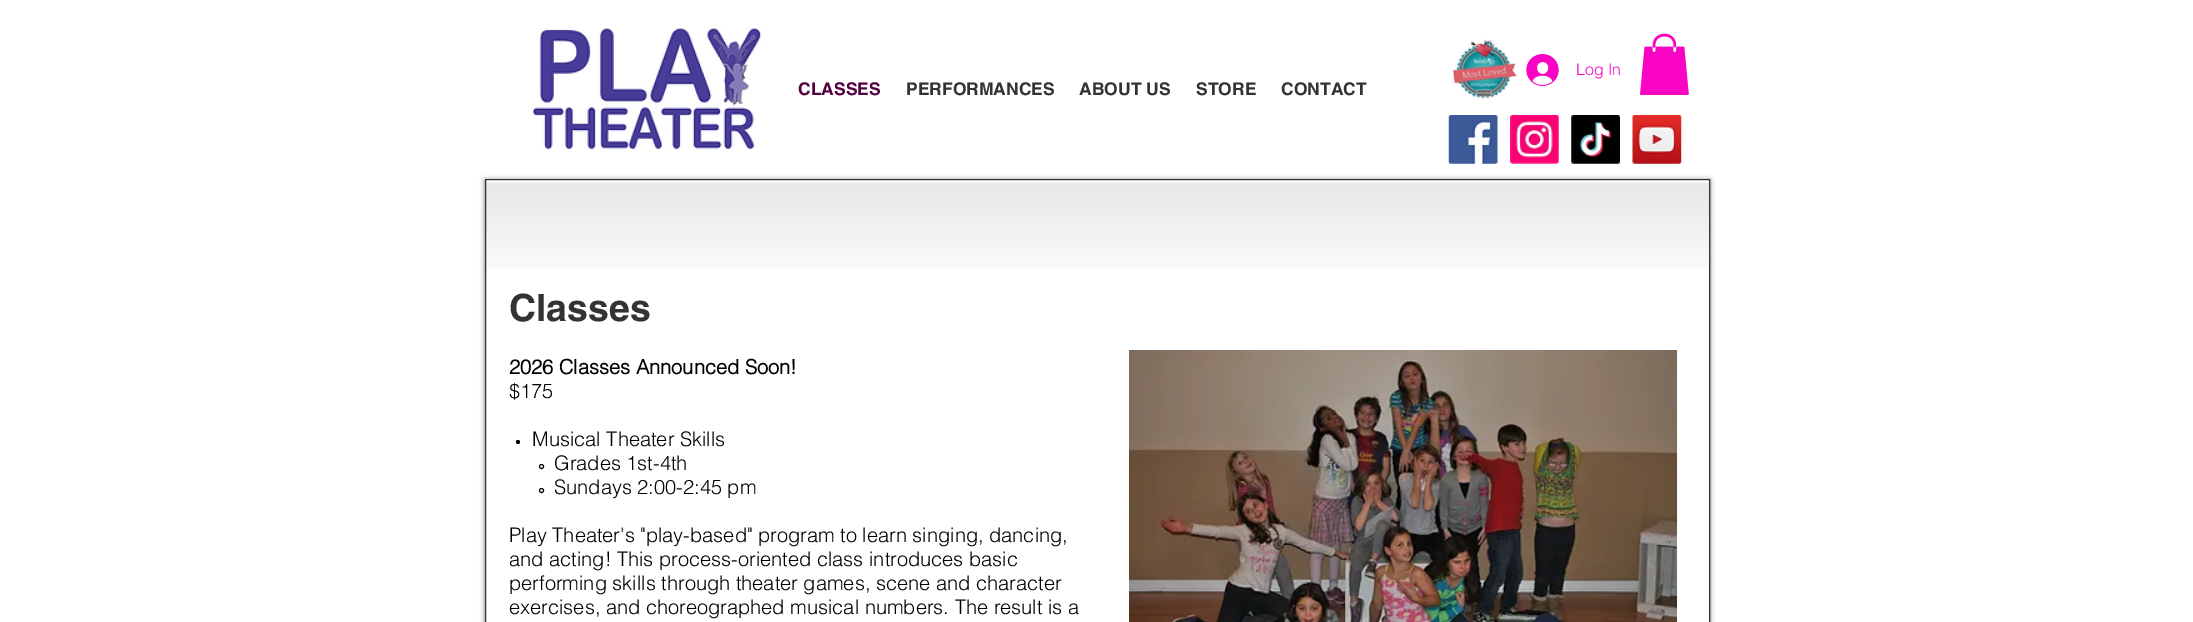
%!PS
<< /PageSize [2193 622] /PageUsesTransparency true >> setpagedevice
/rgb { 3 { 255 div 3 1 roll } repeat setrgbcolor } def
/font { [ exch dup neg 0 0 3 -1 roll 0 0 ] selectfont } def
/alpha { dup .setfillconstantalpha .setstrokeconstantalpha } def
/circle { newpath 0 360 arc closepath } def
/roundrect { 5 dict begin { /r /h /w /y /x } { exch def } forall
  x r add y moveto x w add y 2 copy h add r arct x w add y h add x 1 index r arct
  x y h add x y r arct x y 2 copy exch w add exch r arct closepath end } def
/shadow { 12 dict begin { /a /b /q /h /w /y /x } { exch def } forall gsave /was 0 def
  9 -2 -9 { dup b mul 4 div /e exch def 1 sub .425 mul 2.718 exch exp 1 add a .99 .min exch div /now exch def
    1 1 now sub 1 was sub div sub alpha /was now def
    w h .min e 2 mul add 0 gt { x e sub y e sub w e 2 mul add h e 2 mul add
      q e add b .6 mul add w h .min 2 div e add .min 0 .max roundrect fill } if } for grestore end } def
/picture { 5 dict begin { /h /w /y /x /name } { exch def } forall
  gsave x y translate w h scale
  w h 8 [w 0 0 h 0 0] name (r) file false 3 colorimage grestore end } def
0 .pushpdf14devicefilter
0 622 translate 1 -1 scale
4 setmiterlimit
255 255 255 rgb
0 0 2193 622 rectfill
(img/1.rgb) 532 28 230 121 picture
(img/2.rgb) 1452 39 65 60 picture
(img/3.rgb) 1526 54 33 32 picture
(img/4.rgb) 1640 33 49 62 picture
(img/5.rgb) 1448 115 50 49 picture
(img/6.rgb) 1510 115 49 49 picture
(img/7.rgb) 1571 115 49 49 picture
(img/8.rgb) 1632 115 50 49 picture
gsave
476 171 moveto 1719 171 lineto 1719 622 lineto 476 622 lineto closepath 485 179 moveto 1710 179 lineto 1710 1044 lineto 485 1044 lineto closepath eoclip newpath
0 0 0 rgb
485 180 1225 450 0 2.5 0.6 shadow
grestore
(img/9.rgb) 486 182 1223 86 picture
51 51 51 rgb
485.5 179.5 1224 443 rectstroke
0 0 0 rgb
518 442 2 circle fill
541.5 466.5 2 circle stroke
541.5 490.5 2 circle stroke
(img/10.rgb) 1129 350 549 272 picture
/helvetica-Light 16 font
249 4 195 rgb
1576 75 moveto (Log In) show
/helvetica-Bold 17.5 font
83 1 65 rgb
798 95 moveto (CLASSES) show
51 51 51 rgb
[
  [(PERFORMANCES) 906 95]
  [(ABOUT US) 1079 95]
  [(STORE) 1196 95]
  [(CONTACT) 1281 95]
] { aload pop moveto show } forall
/helvetica-Bold 37.5 font
509 321 moveto (Classes) show
/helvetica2-Bold 20 font
0 0 0 rgb
509 374 moveto (2026 Classes Announced Soon!) show
/helvetica-Light 20 font
[
  [($175) 509 398]
  [(Musical Theater Skills) 532 446]
  [(Grades 1st-4th) 554 470]
  [(Sundays 2:00-2:45 pm) 554 494]
  [(Play Theater's "play-based" program to learn singing, dancing,) 509 542]
  [(and acting! This process-oriented class introduces basic) 509 566]
  [(performing skills through theater games, scene and character) 509 590]
  [(exercises, and choreographed musical numbers. The result is a) 509 614]
] { aload pop moveto show } forall
.poppdf14devicefilter showpage
